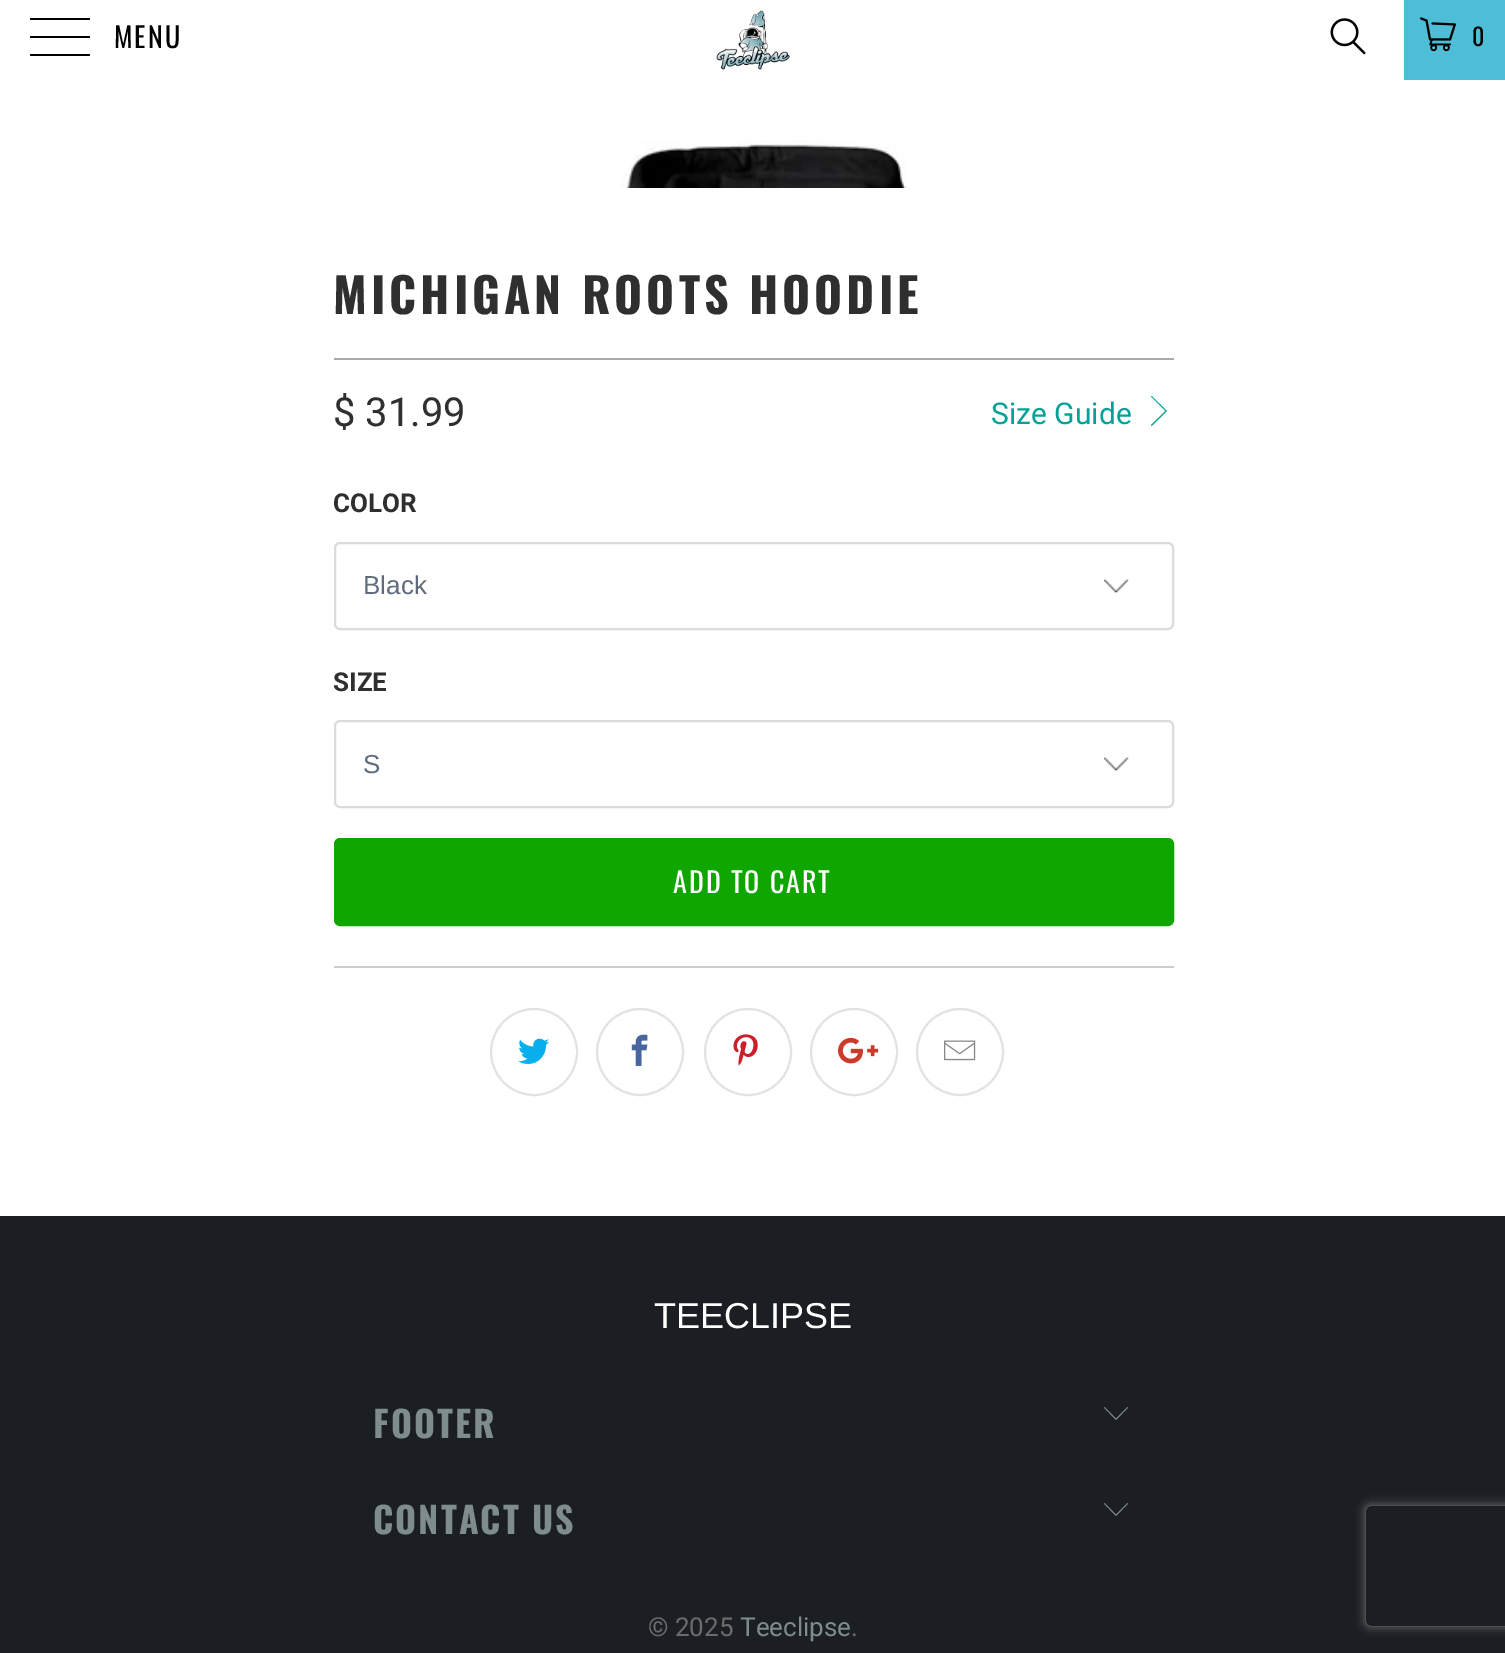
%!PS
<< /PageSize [1505 1653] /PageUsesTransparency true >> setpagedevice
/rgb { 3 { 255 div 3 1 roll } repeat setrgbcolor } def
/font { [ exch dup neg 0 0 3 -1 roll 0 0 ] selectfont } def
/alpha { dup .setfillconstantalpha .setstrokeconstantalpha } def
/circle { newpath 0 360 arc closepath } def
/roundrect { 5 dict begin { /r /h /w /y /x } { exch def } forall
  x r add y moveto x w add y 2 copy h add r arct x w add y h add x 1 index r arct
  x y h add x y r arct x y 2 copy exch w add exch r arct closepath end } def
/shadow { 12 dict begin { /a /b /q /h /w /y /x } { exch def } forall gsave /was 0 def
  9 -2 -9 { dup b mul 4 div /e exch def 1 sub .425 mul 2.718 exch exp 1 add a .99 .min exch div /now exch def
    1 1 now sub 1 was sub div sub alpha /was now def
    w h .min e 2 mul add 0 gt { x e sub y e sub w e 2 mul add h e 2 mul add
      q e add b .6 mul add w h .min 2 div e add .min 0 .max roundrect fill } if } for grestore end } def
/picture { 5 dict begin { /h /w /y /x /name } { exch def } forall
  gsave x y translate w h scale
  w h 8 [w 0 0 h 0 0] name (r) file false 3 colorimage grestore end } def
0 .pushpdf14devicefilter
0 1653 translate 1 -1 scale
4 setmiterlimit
255 255 255 rgb
0 0 1505 1653 rectfill
0 0 0 rgb
30 18 60 2 1 roundrect fill
30 36 60 2 1 roundrect fill
30 54 60 2 1 roundrect fill
(img/1.rgb) 716 10 74 60 picture
(img/2.rgb) 1330 18 36 37 picture
77 190 213 rgb
1404 0 101 80 rectfill
(img/3.rgb) 1420 17 36 35 picture
(img/4.rgb) 620 140 288 48 picture
170 170 170 rgb
334 358 840 2 rectfill
3 161 150 rgb
1151.5 426 moveto 1151 425 lineto 1165.5 411 lineto 1151 396.5 lineto 1151.5 396 lineto 1167 411 lineto closepath fill
(img/5.rgb) 1104 578 25 16 picture
217 219 220 rgb
2 setlinewidth
335 543 838 86 5 roundrect stroke
(img/5.rgb) 1104 756 25 16 picture
335 721 838 86 5 roundrect stroke
15 166 0 rgb
335 839 838 86 5 roundrect gsave fill grestore
stroke
204 204 204 rgb
334 966 840 2 rectfill
226 226 226 rgb
534 1052 43 circle stroke
(img/6.rgb) 518 1038 31 26 picture
640 1052 43 circle stroke
(img/7.rgb) 631 1034 17 32 picture
748 1052 43 circle stroke
(img/8.rgb) 733 1034 25 32 picture
854 1052 43 circle stroke
(img/9.rgb) 838 1037 41 27 picture
960 1052 43 circle stroke
(img/10.rgb) 944 1040 32 21 picture
27 31 35 rgb
0 1216 1505 437 rectfill
127 140 141 rgb
1116 1420 moveto 1104 1407.5 lineto 1104.5 1407 lineto 1116 1418.5 lineto 1127.5 1407 lineto 1128 1407.5 lineto closepath fill
1116 1516 moveto 1104 1503.5 lineto 1104.5 1503 lineto 1116 1514.5 lineto 1127.5 1503 lineto 1128 1503.5 lineto closepath fill
gsave
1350 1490 moveto 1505 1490 lineto 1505 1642 lineto 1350 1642 lineto closepath 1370 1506 moveto 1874 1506 lineto 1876 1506 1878 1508 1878 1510 curveto 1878 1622 lineto 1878 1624 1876 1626 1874 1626 curveto 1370 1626 lineto 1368 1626 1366 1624 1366 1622 curveto 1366 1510 lineto 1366 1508 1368 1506 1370 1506 curveto closepath eoclip newpath
128 128 128 rgb
1366 1506 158 120 4 5 1 shadow
grestore
/Oswald-Regular 28 font
0 0 0 rgb
114 48 moveto 2 0 (MENU) ashow
/Oswald-Regular 24 font
1472 46 moveto 2 0 (0) ashow
/Oswald-Bold 48 font
47 47 47 rgb
333 314 moveto 4 0 (MICHIGAN ROOTS HOODIE) ashow
/Roboto-Regular 40 font
333 426 moveto ($ 31.99) show
/Roboto-Regular 30 font
3 161 150 rgb
991 424 moveto (Size Guide) show
/Roboto-Bold 26 font
47 47 47 rgb
333 512 moveto (COLOR) show
/LiberationSans-Regular 26 font
95 106 125 rgb
363 594 moveto (Black) show
/Roboto-Bold 26 font
47 47 47 rgb
333 691 moveto (SIZE) show
/LiberationSans-Regular 26 font
95 106 125 rgb
363 773 moveto (S) show
/Oswald-Regular 28 font
255 255 255 rgb
673 893 moveto 2 0 (ADD TO CART) ashow
/LiberationSans-Regular 36 font
654 1328 moveto (TEECLIPSE) show
/Oswald-Bold 36 font
127 140 141 rgb
373 1438 moveto 2 0 (FOOTER) ashow
373 1534 moveto 2 0 (CONTACT US) ashow
/Roboto-Regular 26 font
107 107 107 rgb
648 1636 moveto (© 2025) show
127 140 141 rgb
740 1636 moveto (Teeclipse) show
107 107 107 rgb
851 1636 moveto (.) show
.poppdf14devicefilter showpage
